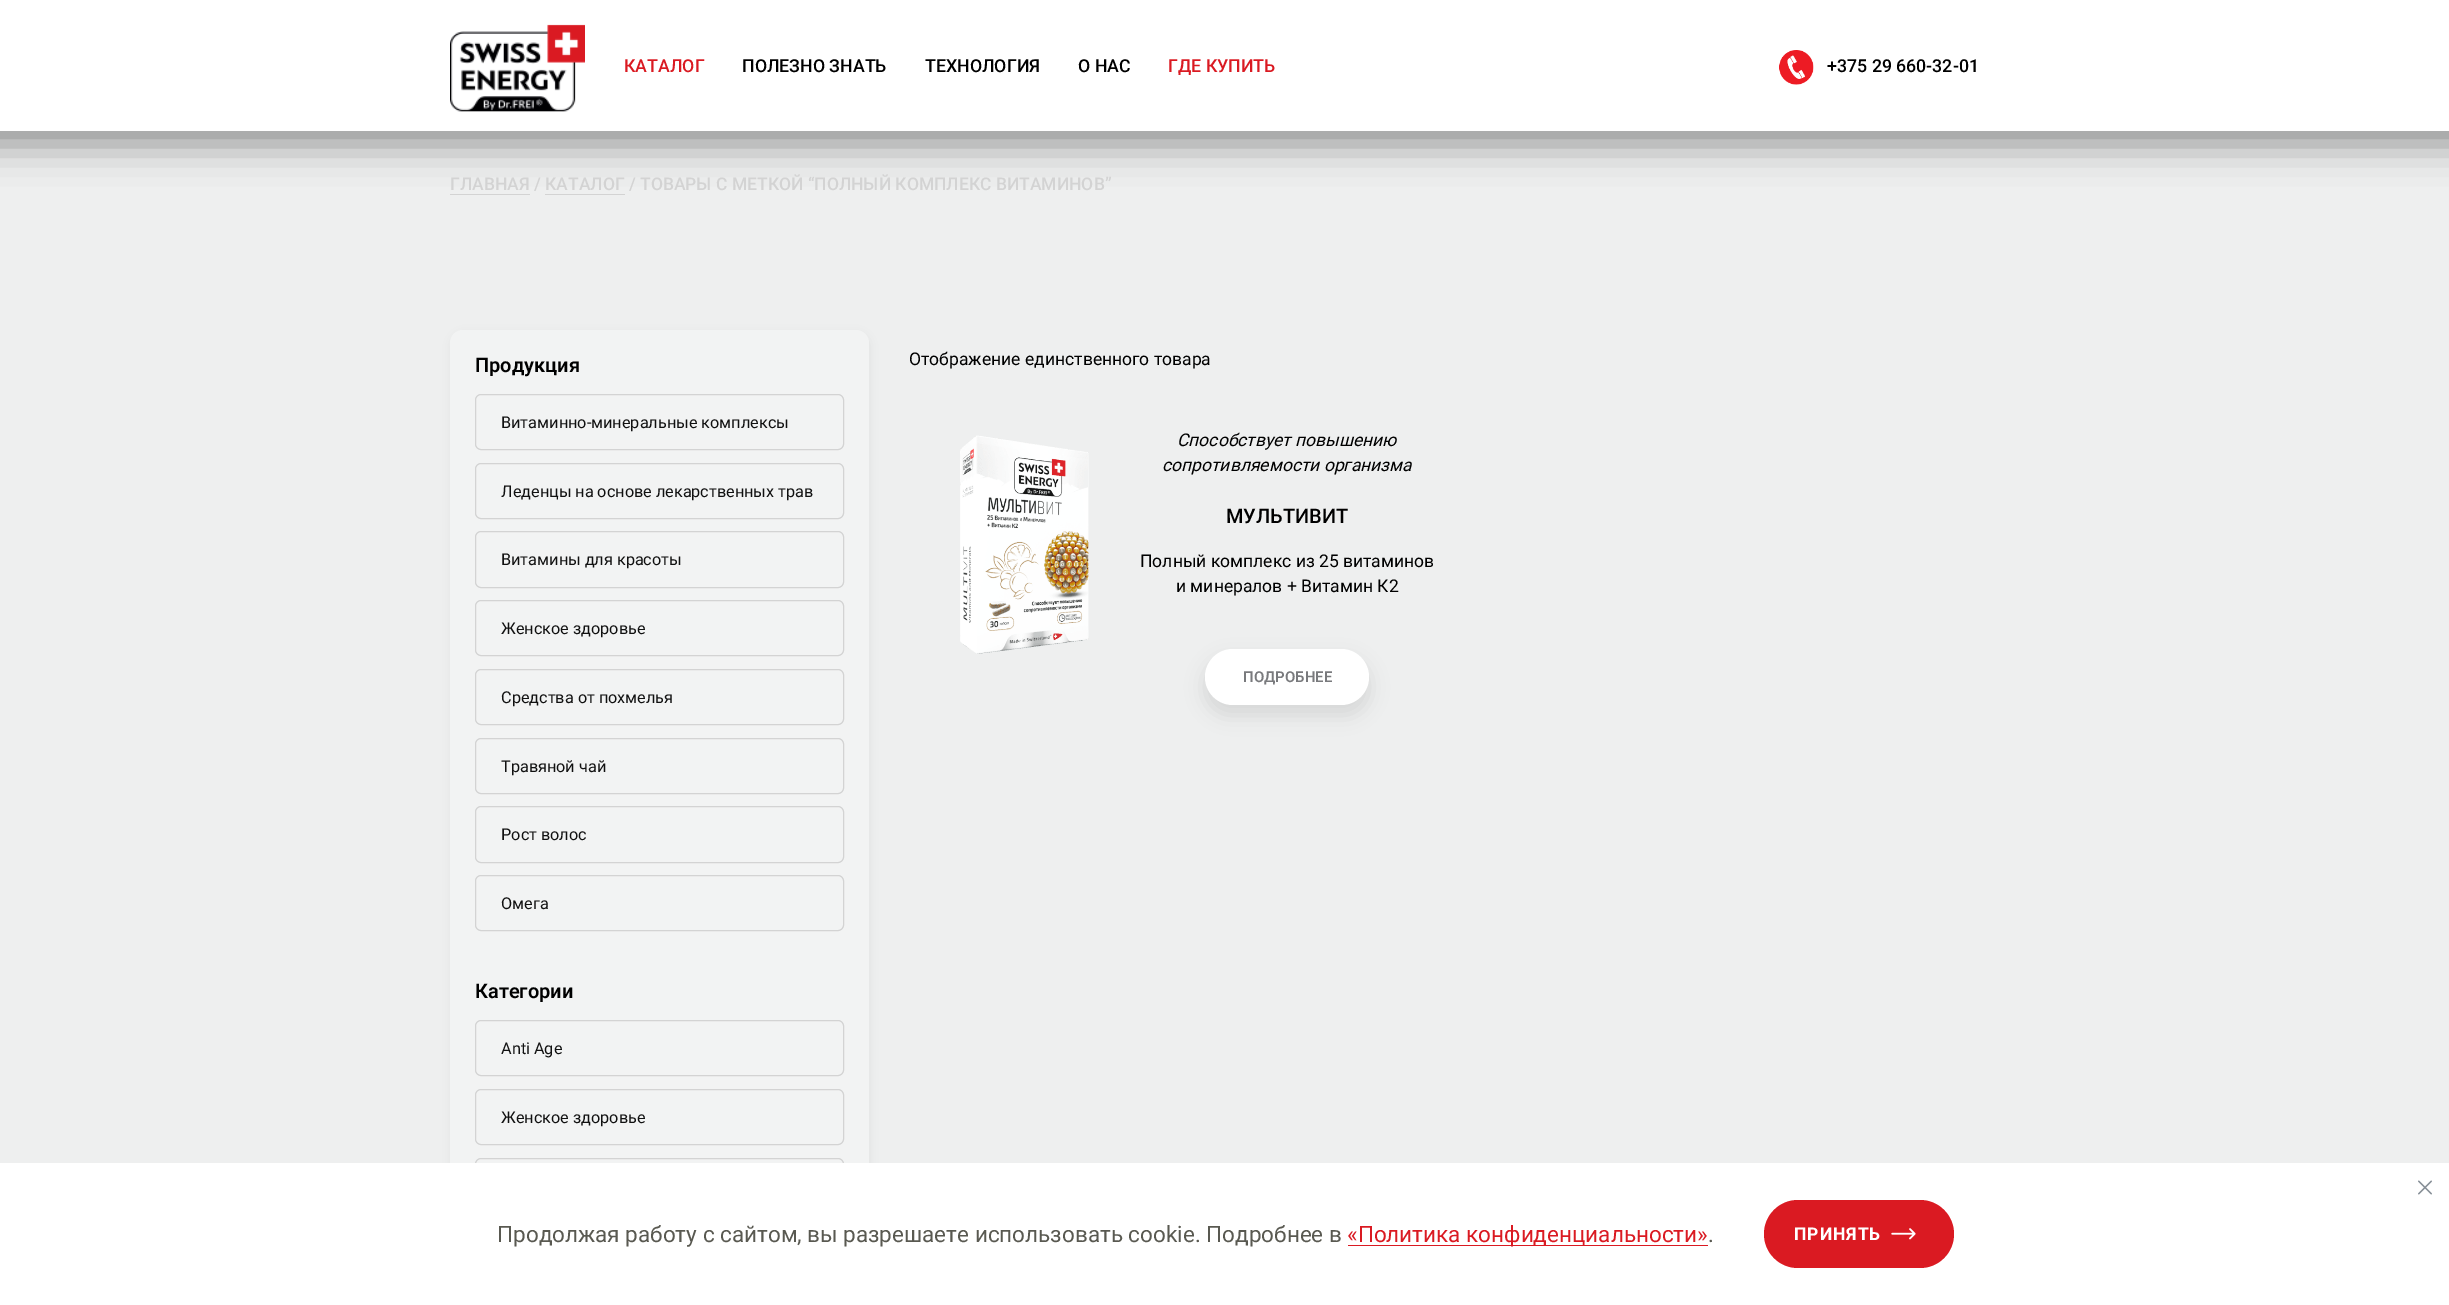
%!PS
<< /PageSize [2449 1305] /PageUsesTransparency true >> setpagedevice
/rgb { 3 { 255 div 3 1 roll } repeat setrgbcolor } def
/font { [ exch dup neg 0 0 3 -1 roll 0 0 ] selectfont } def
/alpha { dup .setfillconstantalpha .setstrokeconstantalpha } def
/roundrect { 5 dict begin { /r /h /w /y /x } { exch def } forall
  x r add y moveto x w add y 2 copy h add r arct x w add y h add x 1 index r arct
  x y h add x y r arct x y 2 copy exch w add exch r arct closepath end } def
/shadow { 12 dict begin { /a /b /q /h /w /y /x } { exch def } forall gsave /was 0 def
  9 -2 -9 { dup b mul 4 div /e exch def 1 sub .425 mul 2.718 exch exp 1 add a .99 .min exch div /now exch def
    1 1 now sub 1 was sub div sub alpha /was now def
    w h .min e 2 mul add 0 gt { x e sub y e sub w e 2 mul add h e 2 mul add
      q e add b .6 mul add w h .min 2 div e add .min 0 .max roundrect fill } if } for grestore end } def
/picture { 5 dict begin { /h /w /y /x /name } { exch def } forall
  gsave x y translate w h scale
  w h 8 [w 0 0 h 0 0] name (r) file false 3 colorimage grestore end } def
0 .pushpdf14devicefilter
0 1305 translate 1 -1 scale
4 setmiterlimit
238 239 239 rgb
0 0 2449 1305 rectfill
0 0 0 rgb
-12 -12 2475 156 0 19 0.4 shadow
255 255 255 rgb
0 0 2449 131 rectfill
(img/1.rgb) 450 24 135 88 picture
(img/2.rgb) 1779 50 35 35 picture
211 211 211 rgb
450 194 80 1 rectfill
545 194 80 1 rectfill
16 17 17 rgb
451 333 419 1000 13 5 0.05 shadow
242 243 243 rgb
450 330 419 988 13 roundrect fill
211 211 211 rgb
475.5 394.5 368 55 5.5 roundrect stroke
475.5 463.5 368 55 5.5 roundrect stroke
475.5 531.5 368 56 5.5 roundrect stroke
475.5 600.5 368 55 5.5 roundrect stroke
475.5 669.5 368 55 5.5 roundrect stroke
475.5 738.5 368 55 5.5 roundrect stroke
475.5 806.5 368 56 5.5 roundrect stroke
475.5 875.5 368 55 5.5 roundrect stroke
475.5 1020.5 368 55 5.5 roundrect stroke
475.5 1089.5 368 55 5.5 roundrect stroke
475.5 1158.5 368 55 5.5 roundrect stroke
(img/3.rgb) 960 435 129 219 picture
0 0 0 rgb
1205 659 164 56 28 9.5 0.1 shadow
255 255 255 rgb
1205 649 164 56 28 roundrect fill
0 1163 2449 142 rectfill
(img/4.rgb) 2418 1180 14 15 picture
218 26 34 rgb
1348 1245 360 1 rectfill
1764 1200 190 68 34 roundrect fill
(img/5.rgb) 1891 1228 25 12 picture
/Roboto-Medium 17.75 font
624 72 moveto (КАТАЛОГ) show
0 0 0 rgb
[
  [(ПОЛЕЗНО ЗНАТЬ) 742 72]
  [(ТЕХНОЛОГИЯ) 925 72]
  [(О НАС) 1078 72]
] { aload pop moveto show } forall
218 26 34 rgb
1168 72 moveto (ГДЕ КУПИТЬ) show
0 0 0 rgb
1827 72 moveto (+375 29 660-32-01) show
/Roboto-Medium 17.5 font
211 211 211 rgb
450 190 moveto (ГЛАВНАЯ / КАТАЛОГ / ТОВАРЫ С МЕТКОЙ “ПОЛНЫЙ КОМПЛЕКС ВИТАМИНОВ”) show
/Roboto-SemiBold 20 font
0 0 0 rgb
475 372 moveto (Продукция) show
/Roboto-Regular 16.25 font
17 17 17 rgb
[
  [(Витаминно-минеральные комплексы) 501 428]
  [(Леденцы на основе лекарственных трав) 501 497]
  [(Витамины для красоты) 501 565]
  [(Женское здоровье) 501 634]
  [(Средства от похмелья) 501 703]
  [(Травяной чай) 501 772]
  [(Рост волос) 501 840]
  [(Омега) 501 909]
] { aload pop moveto show } forall
/Roboto-SemiBold 20 font
0 0 0 rgb
475 998 moveto (Категории) show
/Roboto-Regular 16.25 font
17 17 17 rgb
501 1054 moveto (Anti Age) show
501 1123 moveto (Женское здоровье) show
/Roboto-Regular 17.5 font
0 0 0 rgb
909 365 moveto (Отображение единственного товара) show
/Roboto-Italic 17.5 font
1177 446 moveto (Способствует повышению) show
1162 471 moveto (сопротивляемости организма) show
/Roboto-Medium 20 font
1226 523 moveto (МУЛЬТИВИТ) show
/Roboto-Regular 17.5 font
1140 567 moveto (Полный комплекс из 25 витаминов) show
1176 592 moveto (и минералов + Витамин К2) show
/Roboto-SemiBold 15 font
121 122 125 rgb
1243 682 moveto (ПОДРОБНЕЕ) show
/Roboto-Regular 22.5 font
89 89 81 rgb
497 1242 moveto (Продолжая работу с сайтом, вы разрешаете использовать cookie. Подробнее в) show
218 26 34 rgb
1347 1242 moveto («Политика конфиденциальности») show
89 89 81 rgb
1708 1242 moveto (.) show
/Roboto-Bold 17.5 font
255 255 255 rgb
1794 1240 moveto 1 0 (ПРИНЯТЬ) ashow
.poppdf14devicefilter showpage
